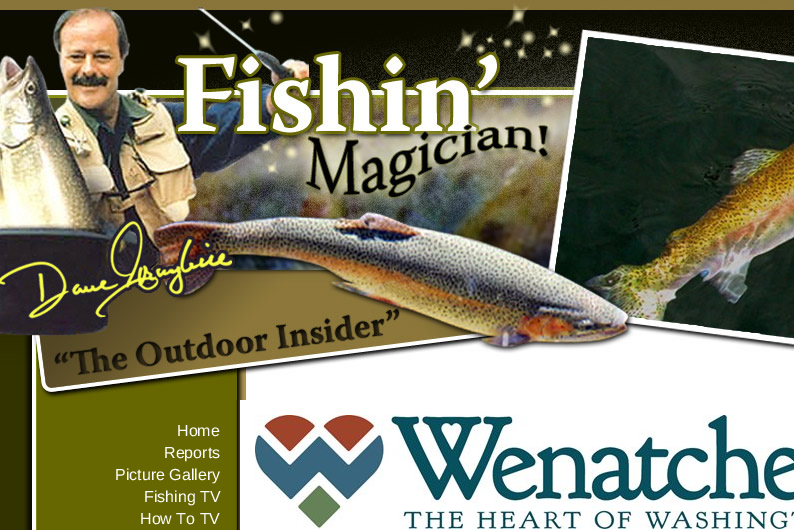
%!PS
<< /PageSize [794 530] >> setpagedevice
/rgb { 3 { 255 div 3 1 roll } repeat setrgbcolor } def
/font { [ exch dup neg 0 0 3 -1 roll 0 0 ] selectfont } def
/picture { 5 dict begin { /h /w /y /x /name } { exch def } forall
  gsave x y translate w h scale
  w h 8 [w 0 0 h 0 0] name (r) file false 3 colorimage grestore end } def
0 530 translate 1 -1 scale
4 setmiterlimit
255 255 255 rgb
0 0 794 530 rectfill
(img/1.rgb) 0 0 794 400 picture
(img/2.rgb) 0 400 240 130 picture
(img/3.rgb) 255 415 539 114 picture
/LiberationSans-Regular 16 font
[
  [(Home) 177 436]
  [(Reports) 164 458]
  [(Picture Gallery) 115 480]
  [(Fishing TV) 144 502]
  [(How To TV) 140 524]
] { aload pop moveto show } forall
showpage
